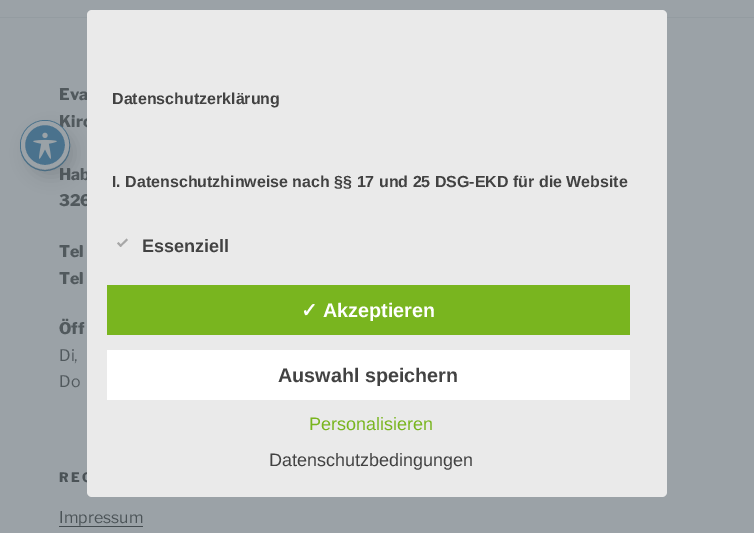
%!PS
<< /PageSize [754 533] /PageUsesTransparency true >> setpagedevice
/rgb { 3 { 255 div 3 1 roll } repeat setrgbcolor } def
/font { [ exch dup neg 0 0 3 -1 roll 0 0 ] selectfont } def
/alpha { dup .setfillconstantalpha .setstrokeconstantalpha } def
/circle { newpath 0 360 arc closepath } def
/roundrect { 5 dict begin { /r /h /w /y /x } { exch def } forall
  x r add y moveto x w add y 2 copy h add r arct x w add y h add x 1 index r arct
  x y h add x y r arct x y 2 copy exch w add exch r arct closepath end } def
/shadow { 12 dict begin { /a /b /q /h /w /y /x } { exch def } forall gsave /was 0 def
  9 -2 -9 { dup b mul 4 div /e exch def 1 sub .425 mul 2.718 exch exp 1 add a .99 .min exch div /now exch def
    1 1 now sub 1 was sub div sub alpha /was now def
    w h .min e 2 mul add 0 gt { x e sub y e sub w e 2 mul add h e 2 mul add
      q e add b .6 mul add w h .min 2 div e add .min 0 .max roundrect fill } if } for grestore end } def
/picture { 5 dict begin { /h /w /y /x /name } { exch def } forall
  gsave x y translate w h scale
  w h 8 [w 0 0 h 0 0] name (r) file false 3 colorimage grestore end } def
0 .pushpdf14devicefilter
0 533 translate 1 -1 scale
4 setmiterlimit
155 162 167 rgb
0 0 754 533 rectfill
148 156 161 rgb
0 17 754 1 rectfill
68 76 80 rgb
59 526 84 1 rectfill
/LibreFranklin-Thin 16 font
81 89 93 rgb
[
  [(Eva) 59 100]
  [(Kirc) 59 127]
  [(Hab) 59 180]
] { aload pop moveto show } forall
74 114 141 rgb
20.5 120.5 49 50 24.5 roundrect stroke
63 70 75 rgb
27 129 48 48 24 8 0.2 shadow
74 114 141 rgb
45 145 22 circle gsave fill grestore
155 162 167 rgb
4 setlinewidth
stroke
(img/1.rgb) 33 132 24 27 picture
81 89 93 rgb
[
  [(326) 59 206]
  [(Tel) 59 257]
  [(Tel) 59 284]
  [(Öff) 59 334]
] { aload pop moveto show } forall
/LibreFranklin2-Thin 16 font
59 361 moveto (Di,) show
59 387 moveto (Do) show
/LibreFranklin-Thin 13 font
75 83 87 rgb
59 482 moveto 2.5 0 (REC) ashow
/LibreFranklin2-Thin 16 font
59 523 moveto (Impressum) show
234 234 234 rgb
87 10 580 487 5 roundrect fill
/LiberationSans-Bold 16 font
66 66 66 rgb
112 104 moveto (Datenschutzerklärung) show
112 187 moveto (I. Datenschutzhinweise nach §§ 17 und 25 DSG-EKD für die Website) show
167 167 167 rgb
126.5 238.5 moveto 128 240 lineto 120.5 247 lineto 119.5 245.5 lineto closepath fill
118.5 242 moveto 122 245.5 lineto 120.5 247 lineto 117 243.5 lineto closepath fill
/LiberationSans-Bold 18 font
66 66 66 rgb
142 252 moveto (Essenziell) show
121 181 31 rgb
107 285 523 50 rectfill
/DejaVuSans-Bold 19.75 font
255 255 255 rgb
301 317 moveto (✓) show
/LiberationSans-Bold 19.75 font
323 317 moveto (Akzeptieren) show
107 350 523 50 rectfill
66 66 66 rgb
278 382 moveto (Auswahl speichern) show
/LiberationSans-Regular 18 font
121 181 31 rgb
309 430 moveto (Personalisieren) show
66 66 66 rgb
269 466 moveto (Datenschutzbedingungen) show
.poppdf14devicefilter showpage
